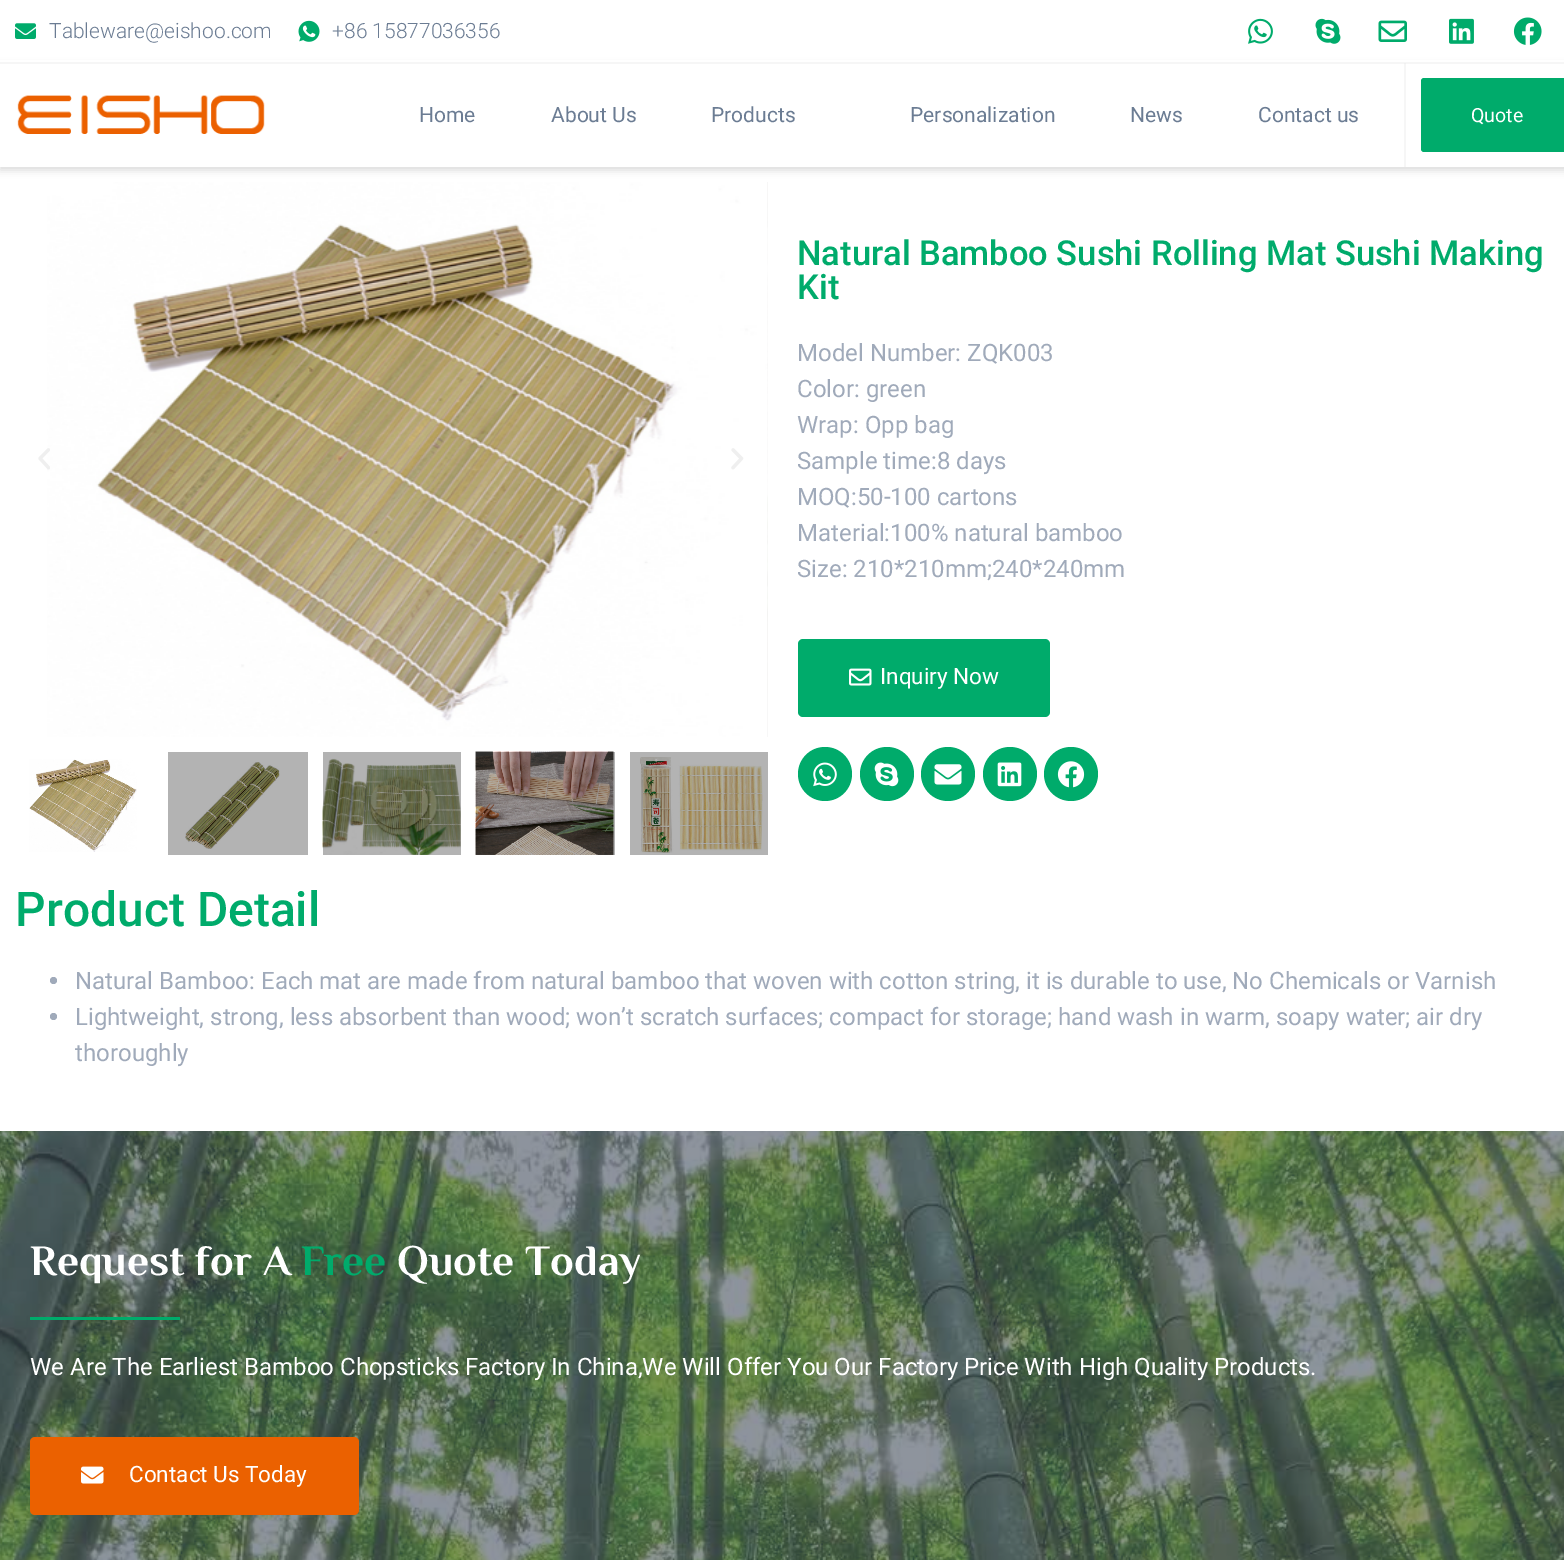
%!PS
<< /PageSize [1564 1560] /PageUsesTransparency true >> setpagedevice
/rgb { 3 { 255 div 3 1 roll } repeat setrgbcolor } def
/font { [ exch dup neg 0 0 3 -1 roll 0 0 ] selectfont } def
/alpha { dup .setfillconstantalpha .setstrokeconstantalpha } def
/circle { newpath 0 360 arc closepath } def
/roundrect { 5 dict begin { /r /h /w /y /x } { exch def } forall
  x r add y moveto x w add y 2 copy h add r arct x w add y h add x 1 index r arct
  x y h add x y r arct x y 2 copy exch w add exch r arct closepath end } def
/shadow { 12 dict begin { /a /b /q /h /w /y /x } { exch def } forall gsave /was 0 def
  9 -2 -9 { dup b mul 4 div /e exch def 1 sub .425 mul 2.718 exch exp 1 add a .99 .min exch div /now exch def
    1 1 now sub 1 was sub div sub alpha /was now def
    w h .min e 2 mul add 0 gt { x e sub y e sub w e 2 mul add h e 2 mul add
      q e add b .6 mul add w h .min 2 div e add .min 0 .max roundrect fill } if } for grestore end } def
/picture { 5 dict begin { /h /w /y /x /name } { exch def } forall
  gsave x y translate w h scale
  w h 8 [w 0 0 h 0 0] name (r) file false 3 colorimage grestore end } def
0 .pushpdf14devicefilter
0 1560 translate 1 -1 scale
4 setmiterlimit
255 255 255 rgb
0 0 1564 1560 rectfill
[
  [630 752 138 103 179 179 179]
  [476 752 139 103 179 179 179]
  [323 752 138 103 179 179 179]
  [168 752 140 103 179 179 179]
] { aload pop rgb rectfill } forall
gsave
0 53 moveto 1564 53 lineto 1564 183 lineto 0 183 lineto closepath 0 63 moveto 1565 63 lineto 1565 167 lineto 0 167 lineto closepath eoclip newpath
0 0 0 rgb
0 66 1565 104 0 4 0.15 shadow
grestore
[
  [0 60 1564 3 255 255 255]
] { aload pop rgb rectfill } forall
0.26 alpha
[
  [1404 63 2 104 221 221 221]
  [0 62 1564 2 221 221 221]
] { aload pop rgb rectfill } forall
1 alpha
(img/1.rgb) 15 23 21 16 picture
(img/2.rgb) 298 20 22 22 picture
(img/3.rgb) 1248 18 25 26 picture
(img/4.rgb) 1315 18 26 26 picture
(img/5.rgb) 1378 20 29 22 picture
(img/6.rgb) 1449 18 25 26 picture
(img/7.rgb) 1513 17 29 28 picture
(img/8.rgb) 17 95 248 39 picture
0 171 107 rgb
1421 78 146 74 3 roundrect fill
(img/12.rgb) 766 222 2 515 picture
(img/11.rgb) 766 182 2 555 picture
(img/9.rgb) 15 182 753 555 picture
(img/10.rgb) 47 182 721 555 picture
(img/13.rgb) 38 448 12 22 picture
(img/14.rgb) 731 448 13 22 picture
(img/15.rgb) 29 759 108 93 picture
(img/16.rgb) 185 762 95 87 picture
(img/17.rgb) 322 758 139 97 picture
(img/18.rgb) 475 751 139 104 picture
(img/19.rgb) 640 757 123 96 picture
798 639 252 78 5 roundrect fill
(img/20.rgb) 849 668 23 18 picture
825 774 27 circle fill
(img/21.rgb) 813 762 24 25 picture
887 774 27 circle fill
(img/22.rgb) 874 762 25 25 picture
948 774 27 circle fill
(img/23.rgb) 934 764 28 21 picture
1010 774 27 circle fill
(img/24.rgb) 997 762 25 25 picture
1071 774 27 circle fill
(img/25.rgb) 1057 761 28 27 picture
160 170 186 rgb
53.5 980.5 3.5 circle fill
53.5 1016.5 3.5 circle fill
(img/26.rgb) 0 1131 1564 429 picture
0 171 107 rgb
30 1317 150 3 rectfill
235 97 0 rgb
30 1437 329 78 5 roundrect fill
(img/27.rgb) 81 1466 23 18 picture
/Roboto-Light 21 font
107 124 147 rgb
49 38 moveto (Tableware@eishoo.com) show
332 38 moveto (+86 15877036356) show
/Heebo-Regular 21 font
[
  [(Home) 419 122]
  [(About Us) 551 122]
  [(Products) 711 122]
  [(Personalization) 910 122]
  [(News) 1130 122]
  [(Contact us) 1258 122]
] { aload pop moveto show } forall
/Heebo-Regular 19.5 font
255 255 255 rgb
1471 122 moveto (Quote) show
/Roboto-Medium 34.5 font
0 171 107 rgb
797 265 moveto (Natural Bamboo Sushi Rolling Mat Sushi Making) show
797 299 moveto (Kit) show
/Roboto-Regular 24 font
160 170 186 rgb
[
  [(Model Number: ZQK003) 797 361]
  [(Color: green) 797 397]
  [(Wrap: Opp bag) 797 433]
  [(Sample time:8 days) 797 469]
  [(MOQ:50-100 cartons) 797 505]
  [(Material:100% natural bamboo) 797 541]
  [(Size: 210*210mm;240*240mm) 797 577]
] { aload pop moveto show } forall
/Heebo-Regular 22.5 font
255 255 255 rgb
880 684 moveto (Inquiry Now) show
/Roboto-Medium 48 font
0 171 107 rgb
15 926 moveto (Product Detail) show
/Roboto-Regular 24 font
160 170 186 rgb
[
  [(Natural Bamboo: Each mat are made from natural bamboo that woven with cotton string, it is durable to use, No Chemicals or Varnish) 75 989]
  [(Lightweight, strong, less absorbent than wood; won’t scratch surfaces; compact for storage; hand wash in warm, soapy water; air dry) 75 1025]
  [(thoroughly) 75 1061]
] { aload pop moveto show } forall
/Philosopher-Bold 43.25 font
255 255 255 rgb
30 1275 moveto (Request for A) show
0 171 107 rgb
301 1275 moveto (Free) show
255 255 255 rgb
397 1275 moveto (Quote Today) show
/Roboto-Regular 24 font
30 1375 moveto (We Are The Earliest Bamboo Chopsticks Factory In China,We Will Offer You Our Factory Price With High Quality Products.) show
/Heebo-Regular 22.5 font
129 1482 moveto (Contact Us Today) show
.poppdf14devicefilter showpage
